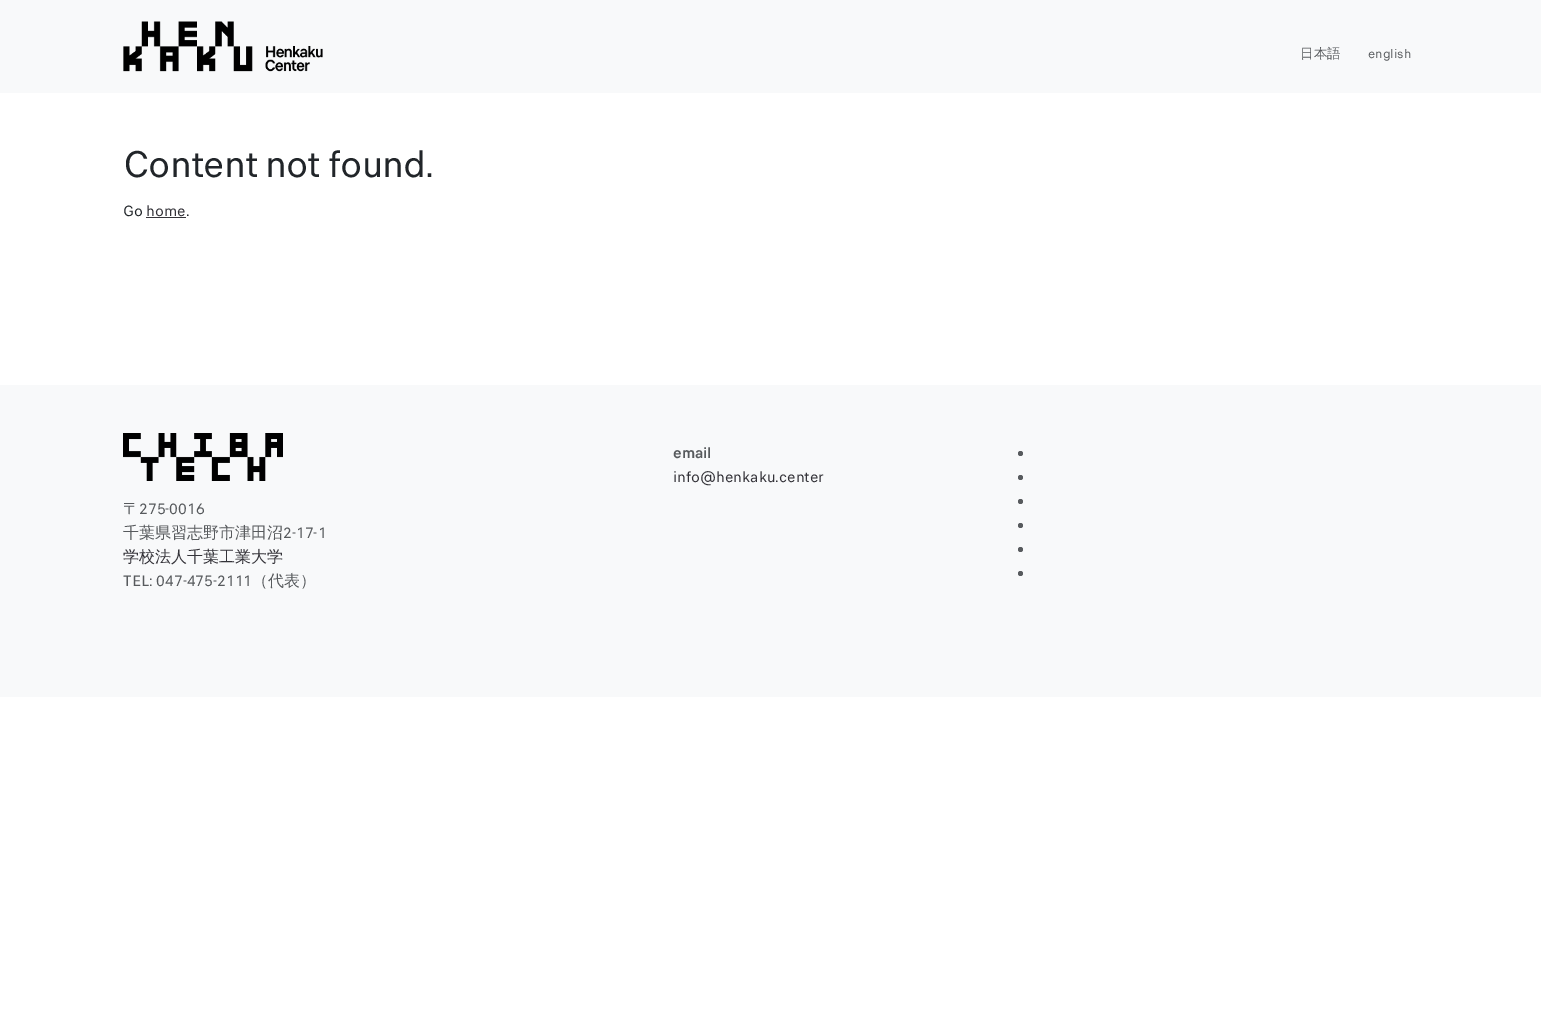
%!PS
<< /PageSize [1541 1012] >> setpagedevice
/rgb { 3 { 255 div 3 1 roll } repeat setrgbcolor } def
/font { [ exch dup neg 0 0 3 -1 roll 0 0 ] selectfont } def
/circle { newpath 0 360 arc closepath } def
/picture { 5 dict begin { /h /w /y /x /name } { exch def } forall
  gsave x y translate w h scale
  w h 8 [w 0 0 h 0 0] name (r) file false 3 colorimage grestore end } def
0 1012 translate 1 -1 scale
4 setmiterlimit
255 255 255 rgb
0 0 1541 1012 rectfill
248 249 250 rgb
0 0 1541 93 rectfill
(img/1.rgb) 123 21 200 51 picture
52 51 57 rgb
146 217 40 1 rectfill
248 249 250 rgb
0 385 1541 312 rectfill
(img/2.rgb) 123 433 160 48 picture
87 90 93 rgb
1020.5 453.5 2.5 circle fill
1020.5 477.5 2.5 circle fill
1020.5 501.5 2.5 circle fill
1020.5 525.5 2.5 circle fill
1020.5 549.5 2.5 circle fill
1020.5 573.5 2.5 circle fill
/WenQuanYiZenHei-Medium 13.5 font
1300 58 moveto (日本語) show
/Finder-Regular 13.5 font
1368 58 moveto (english) show
/Finder-Regular 40 font
33 37 41 rgb
123 177 moveto -1 0 (Content not found.) ashow
/Finder-Regular 16 font
123 216 moveto (Go) show
52 51 57 rgb
146 216 moveto (home) show
33 37 41 rgb
186 216 moveto (.) show
/WenQuanYiZenHei-Medium 16 font
87 90 93 rgb
123 514 moveto (〒) show
/Finder-Regular 16 font
139 514 moveto (275-0016) show
/WenQuanYiZenHei-Medium 16 font
123 538 moveto (千葉県習志野市津田沼) show
/Finder-Regular 16 font
283 538 moveto (2-17-1) show
/WenQuanYiZenHei-Medium 16 font
52 51 57 rgb
123 562 moveto (学校法人千葉工業大学) show
/Finder-Regular 16 font
87 90 93 rgb
123 586 moveto (TEL: 047-475-2111) show
/WenQuanYiZenHei-Medium 16 font
252 586 moveto (（代表）) show
/Finder-Bold 16 font
673 458 moveto (email) show
/Finder-Regular 16 font
52 51 57 rgb
673 482 moveto (info@henkaku.center) show
showpage
